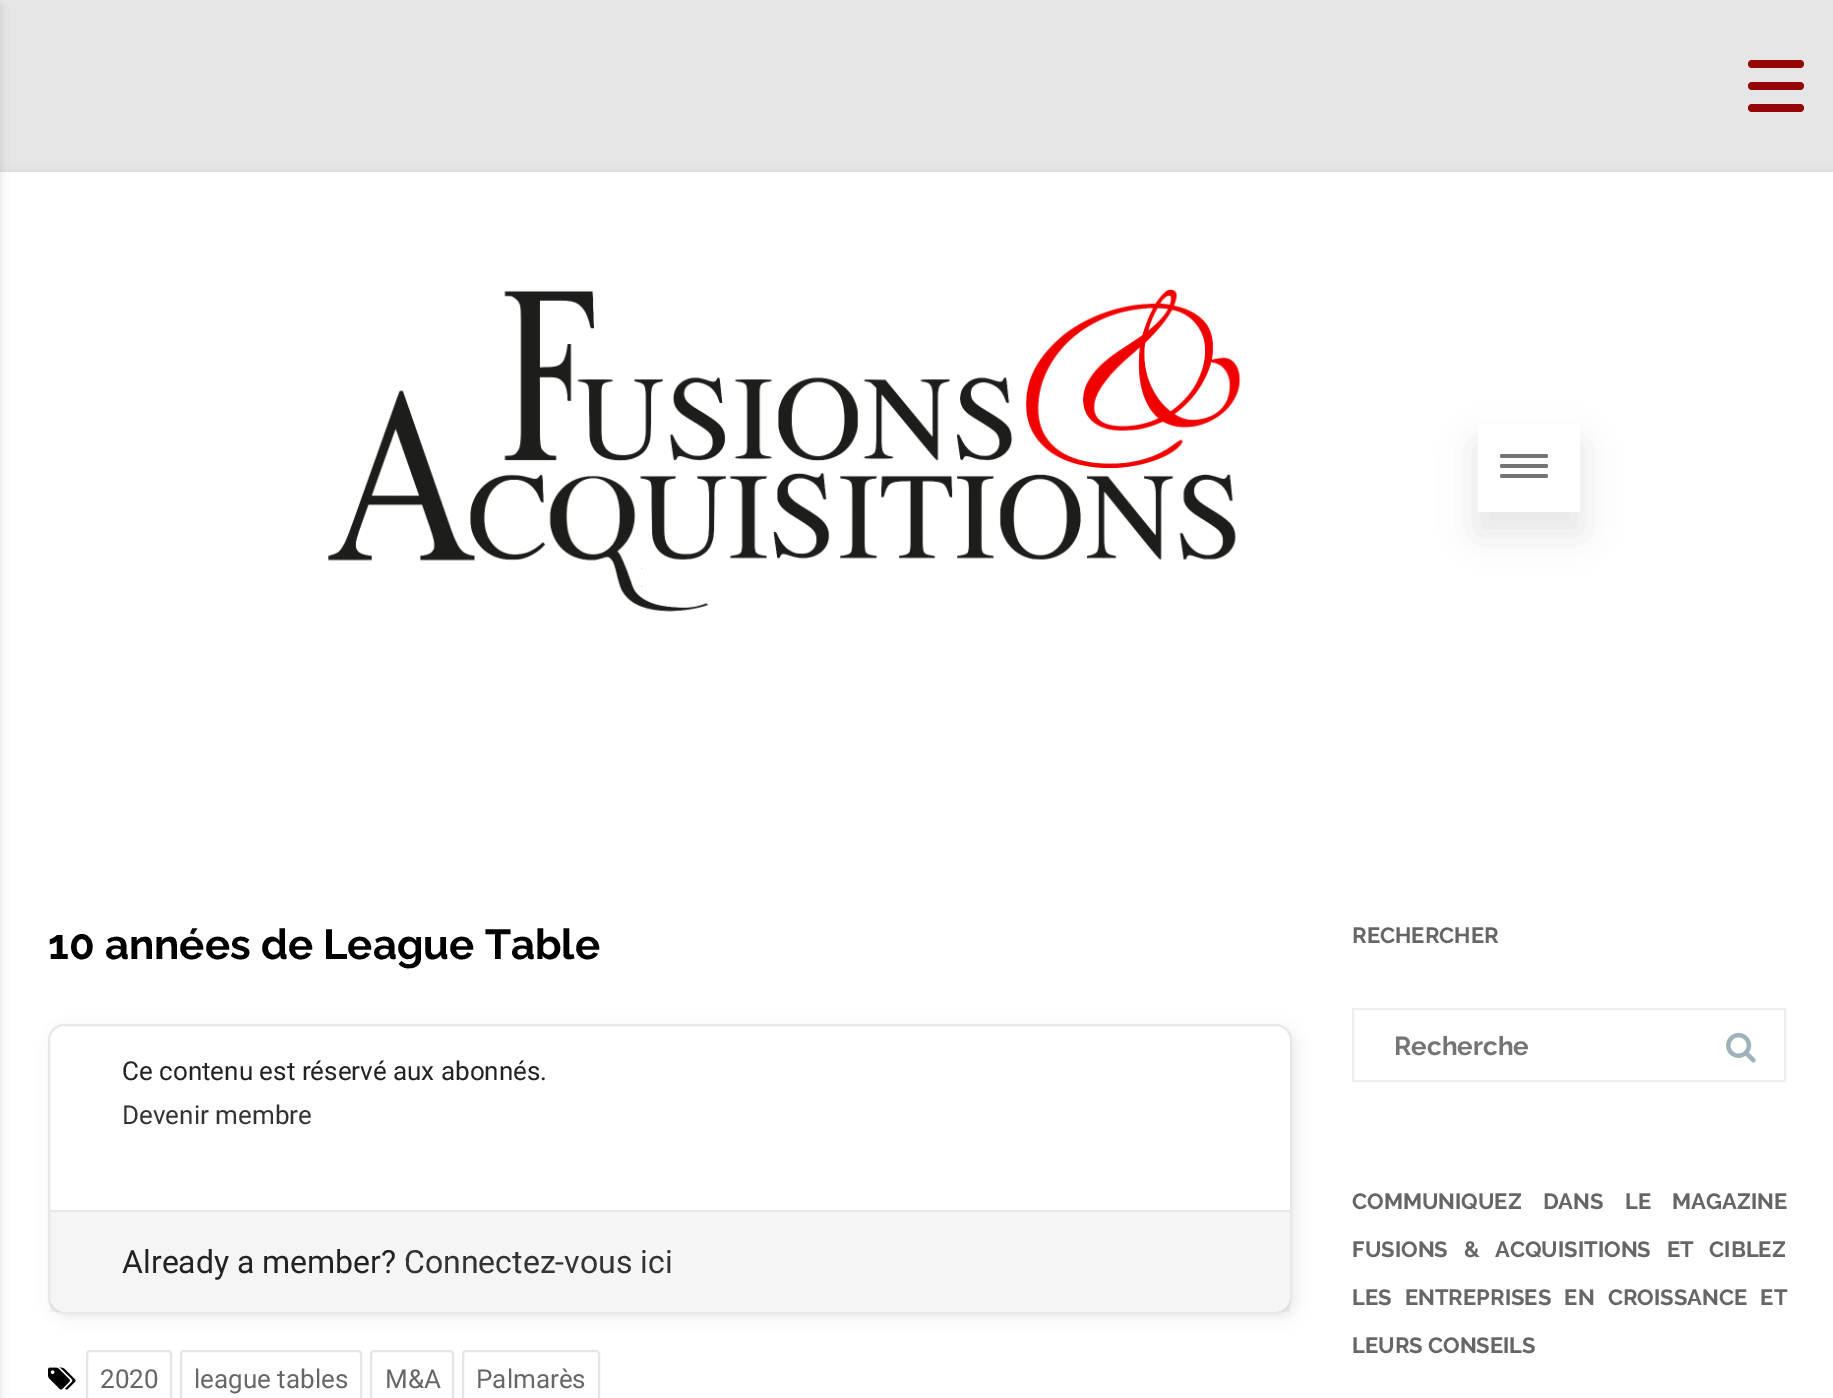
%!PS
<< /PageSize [1833 1398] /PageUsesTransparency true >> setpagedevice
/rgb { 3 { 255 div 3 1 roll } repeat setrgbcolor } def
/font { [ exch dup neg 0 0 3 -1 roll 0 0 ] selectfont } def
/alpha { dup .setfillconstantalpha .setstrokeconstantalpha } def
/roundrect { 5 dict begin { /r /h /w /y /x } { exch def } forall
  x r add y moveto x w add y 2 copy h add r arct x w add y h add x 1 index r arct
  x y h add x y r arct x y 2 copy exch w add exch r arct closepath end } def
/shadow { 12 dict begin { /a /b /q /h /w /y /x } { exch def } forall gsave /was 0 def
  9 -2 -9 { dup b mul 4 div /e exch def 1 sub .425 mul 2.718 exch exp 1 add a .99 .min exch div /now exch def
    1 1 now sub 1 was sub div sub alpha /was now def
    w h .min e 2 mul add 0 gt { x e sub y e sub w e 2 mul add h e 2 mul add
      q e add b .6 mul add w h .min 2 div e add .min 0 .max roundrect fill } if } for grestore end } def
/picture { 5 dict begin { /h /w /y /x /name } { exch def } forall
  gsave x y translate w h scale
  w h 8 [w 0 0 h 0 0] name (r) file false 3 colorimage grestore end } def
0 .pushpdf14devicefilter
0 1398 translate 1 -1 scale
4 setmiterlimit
230 230 230 rgb
0 0 1833 1398 rectfill
100 100 100 rgb
0 176 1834 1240 0 6 0.3 shadow
255 255 255 rgb
0 172 1833 1226 rectfill
0 0 0 rgb
-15 6 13 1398 0 5 0.2 shadow
151 6 7 rgb
1748 60 56 8 4 roundrect fill
1748 82 56 8 4 roundrect fill
1748 104 56 8 4 roundrect fill
(img/1.rgb) 328 289 913 323 picture
gsave
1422 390 moveto 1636 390 lineto 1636 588 lineto 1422 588 lineto closepath 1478 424 moveto 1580 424 lineto 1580 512 lineto 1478 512 lineto closepath eoclip newpath
64 64 64 rgb
1476 444 106 90 0 17.5 0.13 shadow
grestore
117 117 117 rgb
1500 454 48 4 2 roundrect fill
1500 464 48 4 2 roundrect fill
1500 474 48 4 2 roundrect fill
0 0 0 rgb
52 1028 1244 290 16 7 0.07 shadow
255 255 255 rgb
49 1025 1242 288 15 roundrect gsave fill grestore
232 232 232 rgb
2 setlinewidth
stroke
0.04 alpha
0 0 0 rgb
50 1212 1240 100 rectfill
1 alpha
232 232 232 rgb
50 1210 1240 2 rectfill
(img/2.rgb) 48 1367 28 23 picture
229 229 229 rgb
87 1351 84 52 3 roundrect stroke
181 1351 180 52 3 roundrect stroke
371 1351 82 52 3 roundrect stroke
463 1351 136 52 3 roundrect stroke
236 238 240 rgb
1353 1009 432 72 rectstroke
(img/3.rgb) 1726 1032 30 31 picture
/Raleway-Bold 42 font
0 0 0 rgb
48 959 moveto (10 années de League Table) show
/Roboto-Regular 26 font
34 34 34 rgb
122 1080 moveto (Ce contenu est réservé aux abonnés.) show
51 51 51 rgb
122 1124 moveto (Devenir membre) show
/Roboto-Regular 32 font
34 34 34 rgb
122 1273 moveto (Already a member?) show
51 51 51 rgb
404 1273 moveto (Connectez-vous ici) show
/Roboto-Regular 26 font
102 102 102 rgb
[
  [(2020) 100 1388]
  [(league tables) 194 1388]
  [(M&A) 385 1388]
  [(Palmarès) 476 1388]
] { aload pop moveto show } forall
/Raleway-Bold 22 font
1352 943 moveto (RECHERCHER) show
/Raleway-Bold 26 font
117 117 117 rgb
1394 1055 moveto (Recherche) show
/Raleway-Bold 22 font
102 102 102 rgb
1352 1209 moveto 16 0 32 (COMMUNIQUEZ DANS LE MAGAZINE) widthshow
1352 1257 moveto 10.5 0 32 (FUSIONS & ACQUISITIONS ET CIBLEZ) widthshow
1352 1305 moveto 8 0 32 (LES ENTREPRISES EN CROISSANCE ET) widthshow
1352 1353 moveto (LEURS CONSEILS) show
.poppdf14devicefilter showpage
